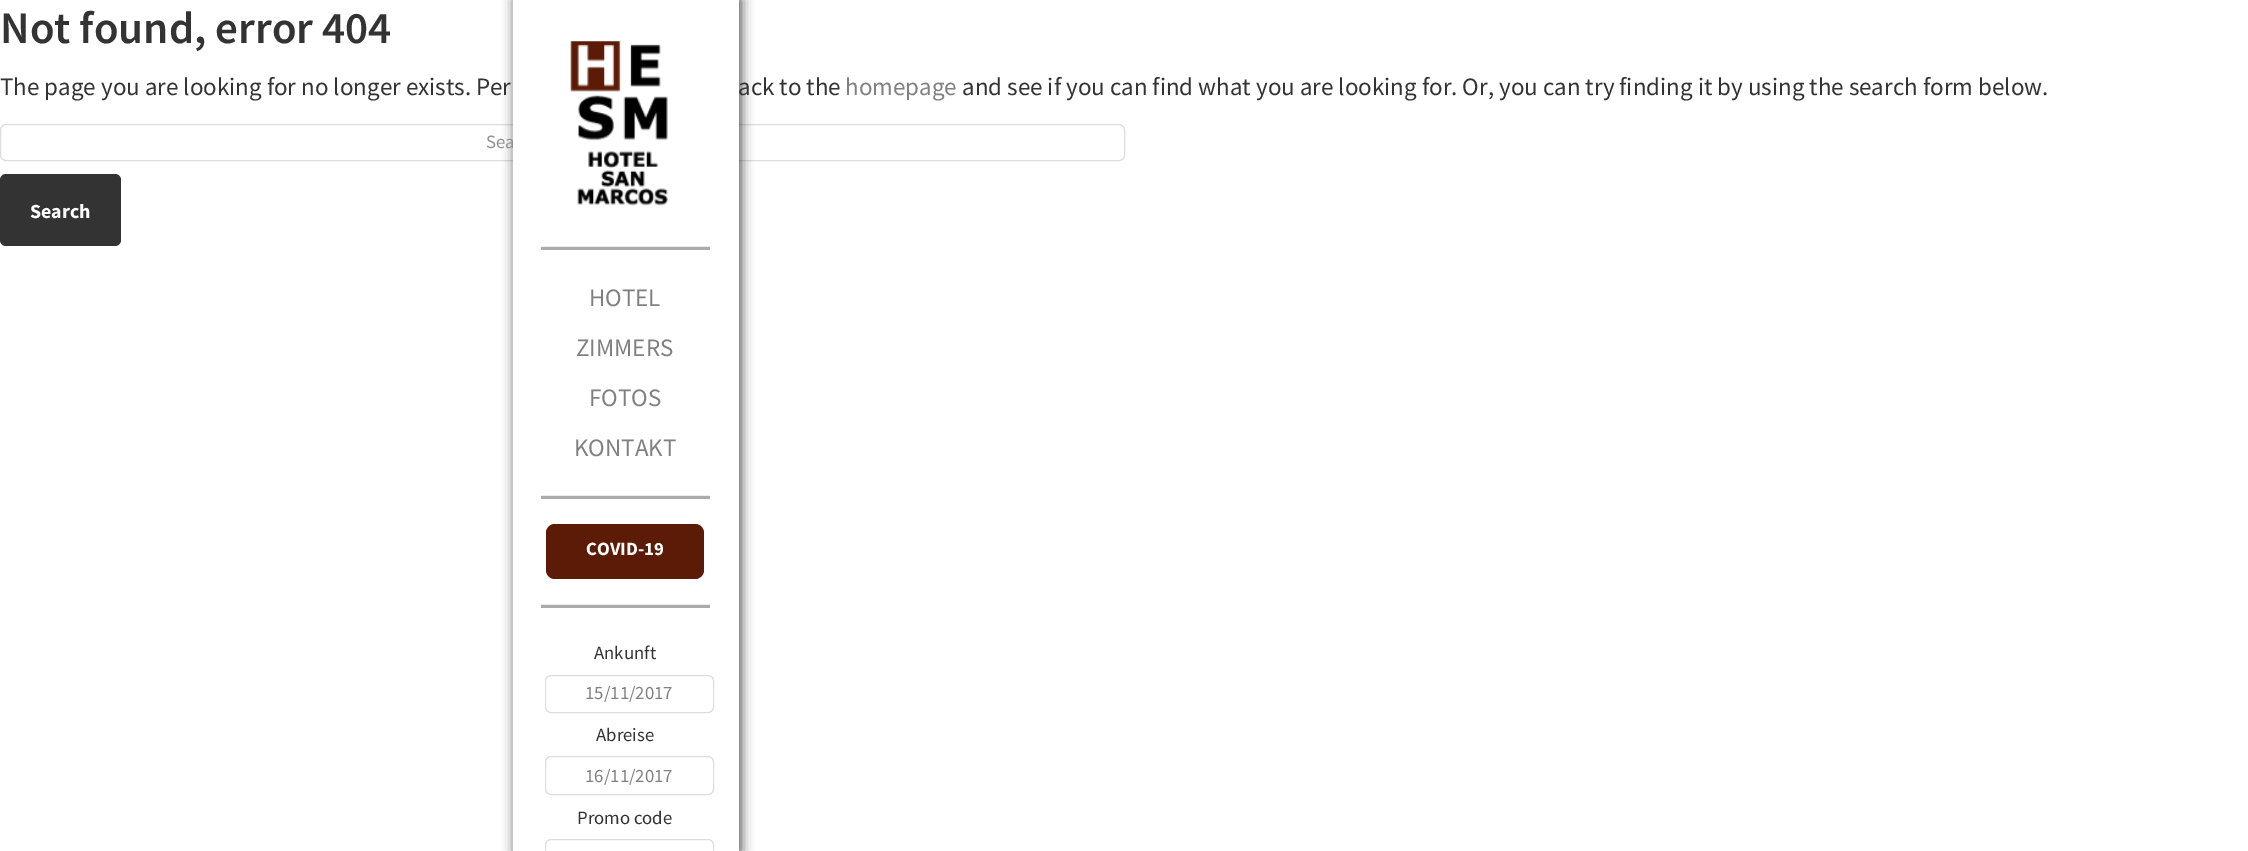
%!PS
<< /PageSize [2248 851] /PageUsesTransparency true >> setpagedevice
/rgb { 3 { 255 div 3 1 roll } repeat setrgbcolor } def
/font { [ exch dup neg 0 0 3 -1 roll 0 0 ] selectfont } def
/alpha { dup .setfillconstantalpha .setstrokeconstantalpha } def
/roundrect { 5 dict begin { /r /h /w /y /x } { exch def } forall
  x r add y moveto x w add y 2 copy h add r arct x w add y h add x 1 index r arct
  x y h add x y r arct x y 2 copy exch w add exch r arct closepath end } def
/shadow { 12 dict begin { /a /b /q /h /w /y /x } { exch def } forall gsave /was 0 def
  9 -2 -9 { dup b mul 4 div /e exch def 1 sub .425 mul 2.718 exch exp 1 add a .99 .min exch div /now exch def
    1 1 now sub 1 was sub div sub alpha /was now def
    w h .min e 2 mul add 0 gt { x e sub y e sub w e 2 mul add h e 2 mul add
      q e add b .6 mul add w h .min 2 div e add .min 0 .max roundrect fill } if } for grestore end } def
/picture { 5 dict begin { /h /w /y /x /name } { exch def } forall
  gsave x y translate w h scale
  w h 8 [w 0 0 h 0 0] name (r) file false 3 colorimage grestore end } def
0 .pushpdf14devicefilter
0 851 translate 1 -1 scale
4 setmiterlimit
255 255 255 rgb
0 0 2248 851 rectfill
221 221 221 rgb
0.5 124.5 1124 36 5.5 roundrect stroke
51 51 51 rgb
0 174 121 72 6 roundrect fill
0 0 0 rgb
515 0 226 851 0 6 0.75 shadow
/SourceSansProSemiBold-SemiBold 45 font
51 51 51 rgb
0 43 moveto (Not found, error 404) show
/SourceSansPro-Regular 25 font
0 95 moveto (The page you are looking for no longer exists. Per) show
738 95 moveto (ack to the) show
128 128 128 rgb
845 95 moveto (homepage) show
51 51 51 rgb
962 95 moveto (and see if you can find what you are looking for. Or, you can try finding it by using the search form below.) show
/SourceSansPro-Regular 18.75 font
145 145 145 rgb
486 148 moveto (Sea) show
/SourceSansPro-Bold 20 font
255 255 255 rgb
30 218 moveto (Search) show
513 0 226 851 rectfill
(img/1.rgb) 570 41 98 165 picture
171 171 171 rgb
541 247 169 3 rectfill
238 238 238 rgb
541 246 169 1 rectfill
/SourceSansPro-Regular 25 font
128 128 128 rgb
[
  [(HOTEL) 589 306]
  [(ZIMMERS) 576 356]
  [(FOTOS) 589 406]
  [(KONTAKT) 574 456]
] { aload pop moveto show } forall
171 171 171 rgb
541 496 169 3 rectfill
238 238 238 rgb
541 495 169 1 rectfill
91 27 6 rgb
546 524 158 55 9 roundrect fill
/SourceSansPro-Bold 18.75 font
255 255 255 rgb
586 555 moveto (COVID-19) show
171 171 171 rgb
541 605 169 3 rectfill
238 238 238 rgb
541 604 169 1 rectfill
/SourceSansPro-Regular 18.75 font
51 51 51 rgb
594 659 moveto (Ankunft) show
221 221 221 rgb
545.5 675.5 168 37 5.5 roundrect stroke
128 128 128 rgb
585 699 moveto (15/11/2017) show
51 51 51 rgb
596 741 moveto (Abreise) show
221 221 221 rgb
545.5 756.5 168 38 5.5 roundrect stroke
128 128 128 rgb
585 782 moveto (16/11/2017) show
51 51 51 rgb
577 824 moveto (Promo code) show
221 221 221 rgb
545.5 839.5 168 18 5.5 roundrect stroke
.poppdf14devicefilter showpage
